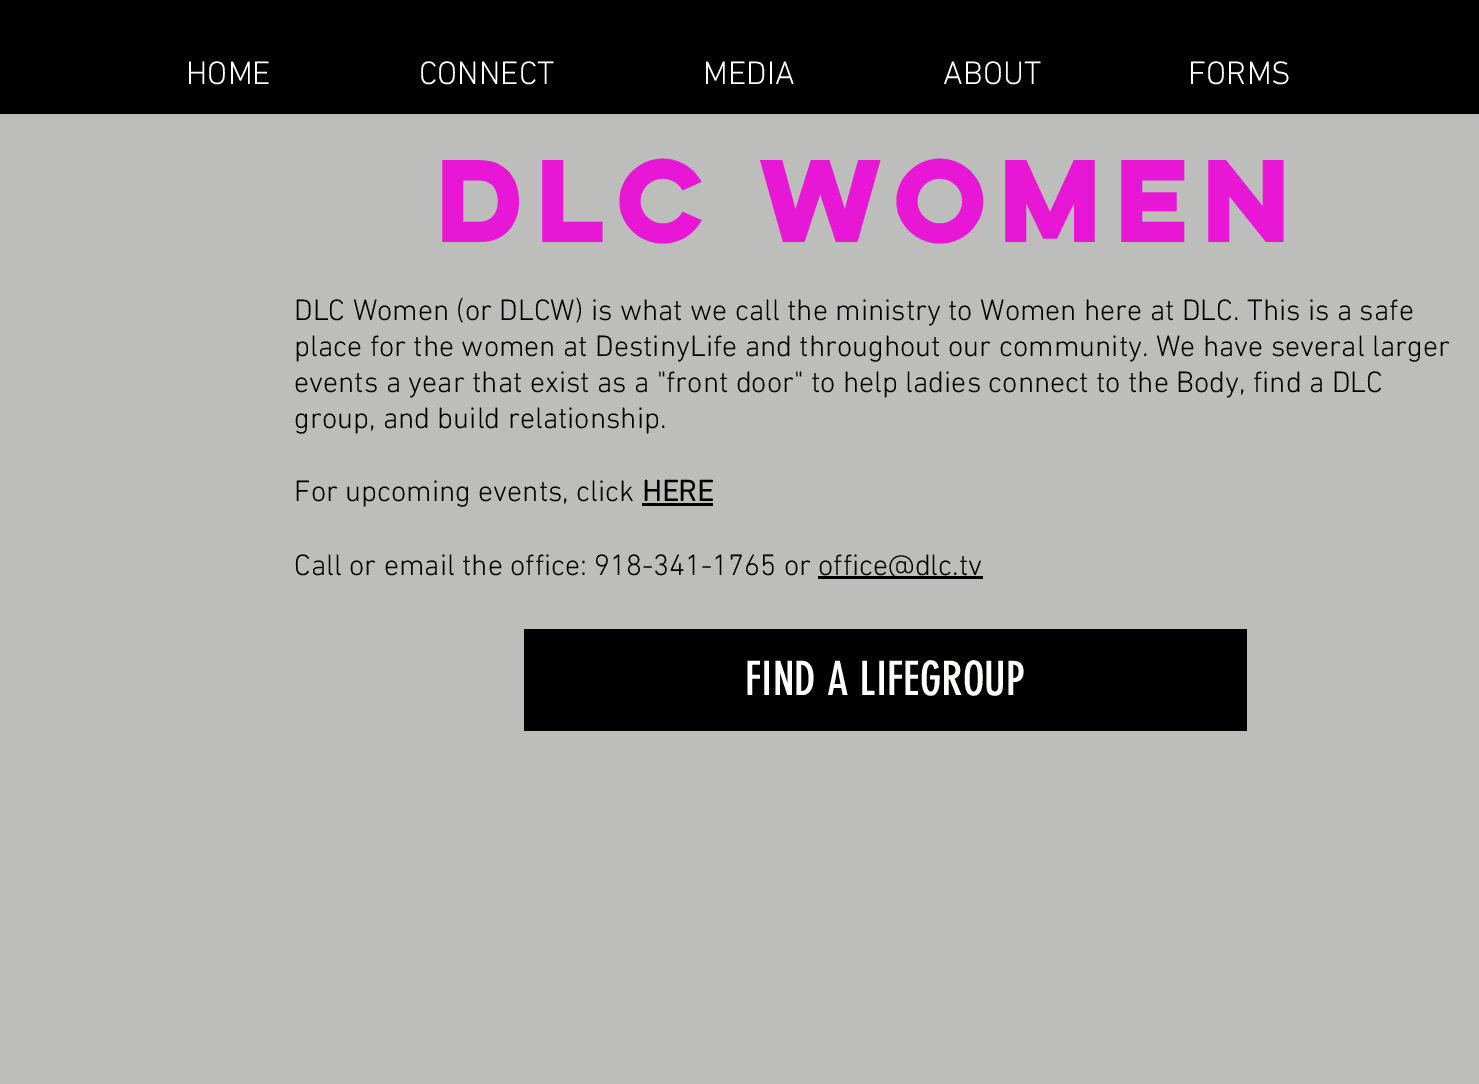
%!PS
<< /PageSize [1479 1084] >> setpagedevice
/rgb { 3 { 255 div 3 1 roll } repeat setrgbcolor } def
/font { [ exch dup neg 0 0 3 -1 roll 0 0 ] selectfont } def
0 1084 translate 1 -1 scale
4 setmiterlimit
189 189 188 rgb
0 0 1479 1084 rectfill
[
  [0 0 1479 114 0 0 0]
  [642 503 71 3 0 0 0]
  [818 576 165 3 0 0 0]
  [524 629 723 102 0 0 0]
] { aload pop rgb rectfill } forall
/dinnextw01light-Light 33 font
255 255 254 rgb
[
  [(HOME) 186 84]
  [(CONNECT) 419 84]
  [(MEDIA) 703 84]
  [(ABOUT) 943 84]
  [(FORMS) 1188 84]
] { aload pop moveto show } forall
/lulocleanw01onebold-Bold 105 font
232 22 213 rgb
436 242 moveto -10.5 0 (DLC WOMEN) ashow
/dinnextw01light-Light 30 font
0 0 0 rgb
[
  [(DLC Women \(or DLCW\) is what we call the ministry to Women here at DLC. This is a safe) 294 320]
  [(place for the women at DestinyLife and throughout our community. We have several larger) 294 356]
  [(events a year that exist as a "front door" to help ladies connect to the Body, find a DLC) 294 392]
  [(group, and build relationship.) 294 428]
  [(For upcoming events, click) 294 501]
] { aload pop moveto show } forall
/dinnextw01light-Bold 30 font
642 501 moveto (HERE) show
/dinnextw01light-Light 30 font
294 575 moveto (Call or email the office: 918-341-1765 or) show
818 575 moveto (office@dlc.tv) show
/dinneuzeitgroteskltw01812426-Regular 46.5 font
255 255 254 rgb
745 695 moveto (FIND A LIFEGROUP) show
showpage
